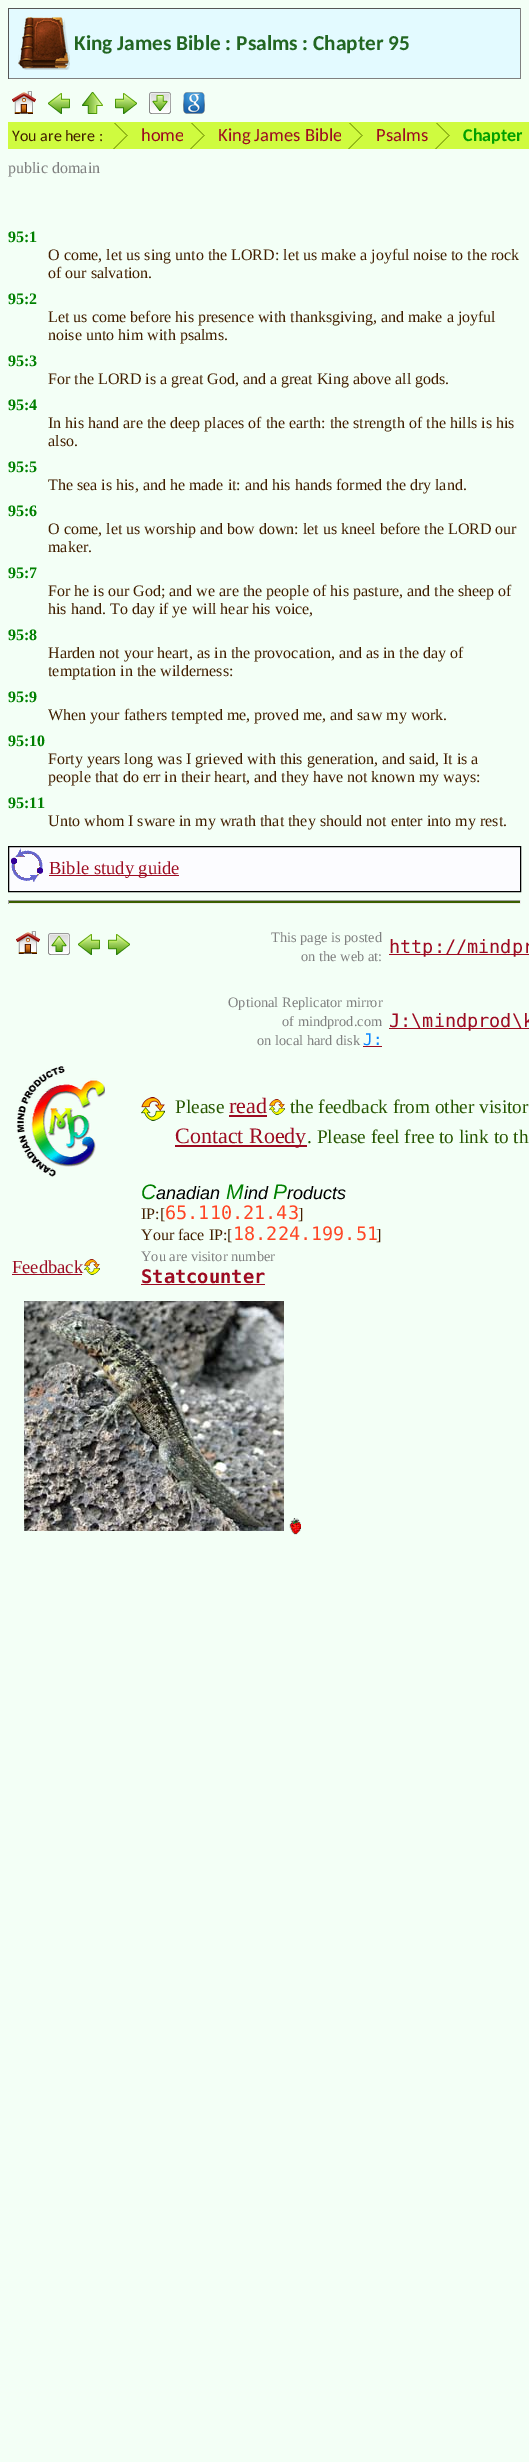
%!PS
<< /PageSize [529 2462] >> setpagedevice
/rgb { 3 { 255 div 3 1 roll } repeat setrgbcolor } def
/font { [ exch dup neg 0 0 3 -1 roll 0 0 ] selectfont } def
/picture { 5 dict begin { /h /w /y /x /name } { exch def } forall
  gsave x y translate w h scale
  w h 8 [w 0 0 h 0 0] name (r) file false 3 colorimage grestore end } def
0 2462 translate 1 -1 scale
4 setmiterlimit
243 255 246 rgb
0 0 529 2462 rectfill
[
  [9 9 511 69 227 250 255]
  [8 8 513 1 85 85 85]
  [520 8 1 71 128 128 128]
  [8 78 513 1 128 128 128]
  [8 8 1 71 85 85 85]
] { aload pop rgb rectfill } forall
(img/1.rgb) 18 17 52 53 picture
(img/2.rgb) 12 91 24 23 picture
(img/3.rgb) 48 93 22 21 picture
(img/4.rgb) 82 92 21 22 picture
(img/5.rgb) 115 93 22 21 picture
(img/6.rgb) 149 92 22 22 picture
(img/7.rgb) 183 92 22 22 picture
207 251 63 rgb
8 122 175 27 rectfill
(img/8.rgb) 113 123 15 26 picture
252 252 255 rgb
9 847 511 44 rectfill
(img/9.rgb) 11 848 32 34 picture
0 0 0 rgb
8.5 846.5 512 45 rectstroke
[
  [49 875 130 1 157 11 33]
  [8 901 513 2 57 96 0]
  [8 900 513 1 159 159 159]
  [520 900 1 4 238 238 238]
  [8 903 513 1 238 238 238]
  [8 900 1 4 159 159 159]
] { aload pop rgb rectfill } forall
(img/2.rgb) 16 931 24 23 picture
(img/10.rgb) 48 933 22 22 picture
(img/3.rgb) 78 934 22 21 picture
(img/5.rgb) 108 934 22 21 picture
[
  [389 954 140 1 157 11 33]
  [363 1046 19 1 157 11 33]
  [389 1028 140 1 157 11 33]
] { aload pop rgb rectfill } forall
(img/11.rgb) 16 1065 89 112 picture
(img/12.rgb) 141 1097 24 24 picture
229 1115 38 2 rectfill
(img/13.rgb) 269 1099 16 16 picture
175 1145 132 2 rectfill
12 1274 70 1 rectfill
(img/13.rgb) 84 1259 16 16 picture
141 1284 124 1 rectfill
(img/14.rgb) 24 1301 277 234 picture
/Carlito-Bold 21.3 font
34 102 34 rgb
74 50 moveto (King James Bible : Psalms : Chapter 95) show
/Carlito-Regular 16 font
66 31 0 rgb
12 141 moveto (You are here :) show
/Carlito-Regular 18.5 font
157 11 33 rgb
141 141 moveto (home) show
207 251 63 rgb
183 122 158 27 rectfill
(img/8.rgb) 190 123 15 26 picture
157 11 33 rgb
218 141 moveto (King James Bible) show
207 251 63 rgb
341 122 188 27 rectfill
157 11 33 rgb
376 141 moveto (Psalms) show
(img/8.rgb) 348 123 15 26 picture
(img/8.rgb) 435 123 15 26 picture
/Carlito-Bold 18 font
0 160 0 rgb
463 141 moveto (Chapter) show
/LiberationSerif-Regular 16 font
128 128 128 rgb
8 173 moveto (public domain) show
/LiberationSerif-Bold 16 font
0 128 0 rgb
8 242 moveto (95:1) show
/LiberationSerif-Regular 16 font
66 31 0 rgb
48 260 moveto (O come, let us sing unto the LORD: let us make a joyful noise to the rock) show
48 278 moveto (of our salvation.) show
/LiberationSerif-Bold 16 font
0 128 0 rgb
8 304 moveto (95:2) show
/LiberationSerif-Regular 16 font
66 31 0 rgb
48 322 moveto (Let us come before his presence with thanksgiving, and make a joyful) show
48 340 moveto (noise unto him with psalms.) show
/LiberationSerif-Bold 16 font
0 128 0 rgb
8 366 moveto (95:3) show
/LiberationSerif-Regular 16 font
66 31 0 rgb
48 384 moveto (For the LORD is a great God, and a great King above all gods.) show
/LiberationSerif-Bold 16 font
0 128 0 rgb
8 410 moveto (95:4) show
/LiberationSerif-Regular 16 font
66 31 0 rgb
48 428 moveto (In his hand are the deep places of the earth: the strength of the hills is his) show
48 446 moveto (also.) show
/LiberationSerif-Bold 16 font
0 128 0 rgb
8 472 moveto (95:5) show
/LiberationSerif-Regular 16 font
66 31 0 rgb
48 490 moveto (The sea is his, and he made it: and his hands formed the dry land.) show
/LiberationSerif-Bold 16 font
0 128 0 rgb
8 516 moveto (95:6) show
/LiberationSerif-Regular 16 font
66 31 0 rgb
48 534 moveto (O come, let us worship and bow down: let us kneel before the LORD our) show
48 552 moveto (maker.) show
/LiberationSerif-Bold 16 font
0 128 0 rgb
8 578 moveto (95:7) show
/LiberationSerif-Regular 16 font
66 31 0 rgb
48 596 moveto (For he is our God; and we are the people of his pasture, and the sheep of) show
48 614 moveto (his hand. To day if ye will hear his voice,) show
/LiberationSerif-Bold 16 font
0 128 0 rgb
8 640 moveto (95:8) show
/LiberationSerif-Regular 16 font
66 31 0 rgb
48 658 moveto (Harden not your heart, as in the provocation, and as in the day of) show
48 676 moveto (temptation in the wilderness:) show
/LiberationSerif-Bold 16 font
0 128 0 rgb
8 702 moveto (95:9) show
/LiberationSerif-Regular 16 font
66 31 0 rgb
48 720 moveto (When your fathers tempted me, proved me, and saw my work.) show
/LiberationSerif-Bold 16 font
0 128 0 rgb
8 746 moveto (95:10) show
/LiberationSerif-Regular 16 font
66 31 0 rgb
48 764 moveto (Forty years long was I grieved with this generation, and said, It is a) show
48 782 moveto (people that do err in their heart, and they have not known my ways:) show
/LiberationSerif-Bold 16 font
0 128 0 rgb
8 808 moveto (95:11) show
/LiberationSerif-Regular 16 font
66 31 0 rgb
48 826 moveto (Unto whom I sware in my wrath that they should not enter into my rest.) show
/LiberationSerif-Regular 18.5 font
157 11 33 rgb
49 874 moveto (Bible study guide) show
/LiberationSerif-Regular 14.4 font
128 128 128 rgb
271 942 moveto (This page is posted) show
301 961 moveto (on the web at:) show
/DejaVuSansMono-Regular 18.5 font
157 11 33 rgb
389 953 moveto (http://mindpr) show
/LiberationSerif-Regular 14.4 font
128 128 128 rgb
[
  [(Optional Replicator mirror) 228 1007]
  [(of mindprod.com) 282 1026]
  [(on local hard disk) 257 1045]
] { aload pop moveto show } forall
/DejaVuSansMono-Regular 16 font
9 134 255 rgb
363 1045 moveto (J:) show
/DejaVuSansMono-Regular 18.5 font
157 11 33 rgb
389 1027 moveto (J:\\mindprod\\k) show
/LiberationSerif-Regular 19.25 font
39 87 0 rgb
175 1113 moveto (Please) show
/LiberationSerif-Regular 22 font
157 11 33 rgb
229 1113 moveto (read) show
/LiberationSerif-Regular 19.25 font
39 87 0 rgb
290 1113 moveto (the feedback from other visitor) show
/LiberationSerif-Regular 22 font
157 11 33 rgb
175 1143 moveto (Contact Roedy) show
/LiberationSerif-Regular 19.25 font
39 87 0 rgb
307 1143 moveto (. Please feel free to link to th) show
/LiberationSans-Italic 21 font
0 128 0 rgb
141 1199 moveto (C) show
/LiberationSans-Italic 18 font
0 0 0 rgb
156 1199 moveto (anadian) show
/LiberationSans-Italic 21 font
0 128 0 rgb
226 1199 moveto (M) show
/LiberationSans-Italic 18 font
0 0 0 rgb
244 1199 moveto (ind) show
/LiberationSans-Italic 21 font
0 128 0 rgb
273 1199 moveto (P) show
/LiberationSans-Italic 18 font
0 0 0 rgb
287 1199 moveto (roducts) show
/LiberationSerif-Regular 16 font
66 31 0 rgb
141 1219 moveto (IP:[) show
/DejaVuSansMono-Regular 18.5 font
255 69 36 rgb
165 1219 moveto (65.110.21.43) show
/LiberationSerif-Regular 16 font
66 31 0 rgb
298 1219 moveto (]) show
141 1240 moveto (Your face IP:[) show
/DejaVuSansMono-Regular 18.5 font
255 69 36 rgb
233 1240 moveto (18.224.199.51) show
/LiberationSerif-Regular 16 font
66 31 0 rgb
376 1240 moveto (]) show
/LiberationSerif-Regular 18.5 font
157 11 33 rgb
12 1273 moveto (Feedback) show
/LiberationSerif-Regular 14.4 font
128 128 128 rgb
141 1261 moveto (You are visitor number) show
/DejaVuSansMono-Bold 18.75 font
157 11 33 rgb
141 1283 moveto (Statcounter) show
showpage
